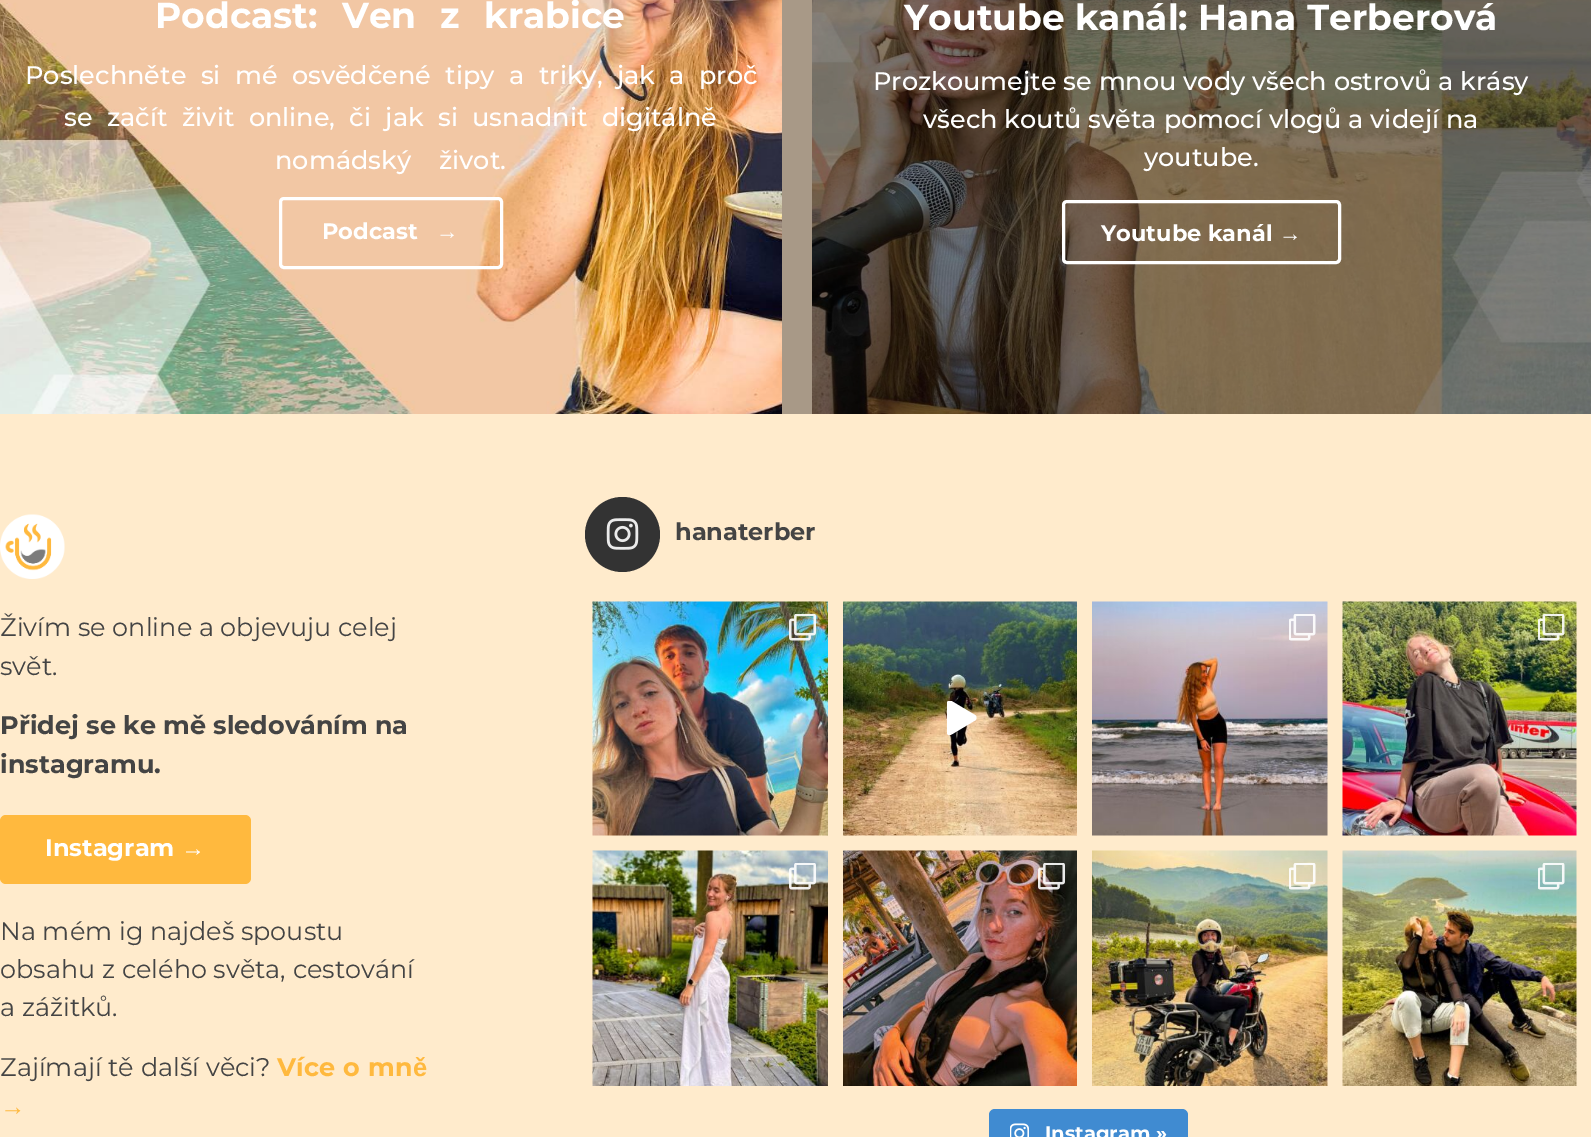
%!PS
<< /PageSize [1591 1137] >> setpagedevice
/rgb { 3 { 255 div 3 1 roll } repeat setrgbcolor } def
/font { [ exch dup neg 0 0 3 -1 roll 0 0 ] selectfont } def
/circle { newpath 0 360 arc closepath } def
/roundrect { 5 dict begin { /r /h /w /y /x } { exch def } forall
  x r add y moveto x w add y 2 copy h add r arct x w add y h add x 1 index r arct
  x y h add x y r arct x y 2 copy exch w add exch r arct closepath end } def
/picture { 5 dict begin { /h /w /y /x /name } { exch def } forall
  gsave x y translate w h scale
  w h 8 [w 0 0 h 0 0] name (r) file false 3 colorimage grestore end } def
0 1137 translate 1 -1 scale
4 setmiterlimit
168 153 135 rgb
0 0 1591 1137 rectfill
(img/1.rgb) 0 0 782 414 picture
255 255 255 rgb
3 setlinewidth
280.5 198.5 221 69 3.5 roundrect stroke
(img/2.rgb) 812 0 779 414 picture
1063.5 201.5 276 61 3.5 roundrect stroke
255 235 204 rgb
0 414 1591 723 rectfill
(img/3.rgb) 0 514 65 65 picture
255 185 62 rgb
0 815 251 69 6 roundrect fill
51 51 51 rgb
622.5 534.5 37.5 circle fill
(img/4.rgb) 606 518 33 32 picture
(img/5.rgb) 592 601 236 235 picture
(img/6.rgb) 789 614 27 27 picture
(img/7.rgb) 843 601 234 235 picture
gsave
947 701 30 34 rectclip
255 255 255 rgb
975 715 moveto 951.5 701 lineto 949.5 700 946.5 701 946.5 703.5 curveto 946.5 732 lineto 946.5 734.5 949 736 951.5 734.5 curveto 975 720.5 lineto 977 719.5 977 716 975 715 curveto closepath fill
grestore
(img/8.rgb) 1092 601 236 235 picture
(img/9.rgb) 1289 614 27 27 picture
(img/10.rgb) 1342 601 235 235 picture
(img/11.rgb) 1538 614 27 27 picture
(img/12.rgb) 592 850 236 236 picture
(img/13.rgb) 789 863 27 27 picture
(img/14.rgb) 843 850 234 236 picture
(img/15.rgb) 1038 863 27 27 picture
(img/16.rgb) 1092 850 236 236 picture
(img/17.rgb) 1289 863 27 27 picture
(img/18.rgb) 1342 850 235 236 picture
(img/19.rgb) 1538 863 27 27 picture
64 139 209 rgb
989 1109 199 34 6 roundrect fill
(img/20.rgb) 1010 1123 19 14 picture
/Montserrat-Bold 36 font
255 255 255 rgb
155 28 moveto 14 0 32 (Podcast: Ven z krabice) widthshow
/Montserrat-Medium 25.5 font
25 84 moveto 7.5 0 32 (Poslechněte si mé osvědčené tipy a triky, jak a proč) widthshow
64 126 moveto 7.5 0 32 (se začít živit online, či jak si usnadnit digitálně) widthshow
275 169 moveto 21 0 32 (nomádský život.) widthshow
/Montserrat-Bold 22.5 font
322 239 moveto (Podcast) show
/LiberationSans-Bold 22.5 font
436 239 moveto (→) show
/Montserrat-Bold 36 font
904 30 moveto (Youtube kanál: Hana Terberová) show
/Montserrat-Medium 25.5 font
[
  [(Prozkoumejte se mnou vody všech ostrovů a krásy) 873 90]
  [(všech koutů světa pomocí vlogů a videjí na) 923 128]
  [(youtube.) 1144 166]
] { aload pop moveto show } forall
/Montserrat-Bold 22.5 font
1101 241 moveto (Youtube kanál) show
/LiberationSans-Bold 22.5 font
1279 241 moveto (→) show
/Montserrat-Regular 25.5 font
68 68 68 rgb
0 636 moveto (Živím se online a objevuju celej) show
0 675 moveto (svět.) show
/Montserrat-Bold 25.5 font
0 734 moveto (Přidej se ke mě sledováním na) show
0 773 moveto (instagramu.) show
/Montserrat-Bold 24 font
255 255 255 rgb
45 856 moveto (Instagram) show
/LiberationSans-Bold 24 font
181 856 moveto (→) show
/Montserrat-Regular 25.5 font
68 68 68 rgb
[
  [(Na mém ig najdeš spoustu) 0 940]
  [(obsahu z celého světa, cestování) 0 978]
  [(a zážitků.) 0 1016]
  [(Zajímají tě další věci?) 0 1076]
] { aload pop moveto show } forall
/Montserrat-Bold 25.5 font
255 185 62 rgb
277 1076 moveto 1 0 32 (Více o mn) widthshow
/LiberationSans-Bold 25.5 font
413 1076 moveto (ě) show
0 1115 moveto (→) show
/Montserrat-Bold 24 font
68 68 68 rgb
675 540 moveto (hanaterber) show
/Montserrat-Bold 19.5 font
255 255 255 rgb
1045 1140 moveto (Instagram ») show
showpage
